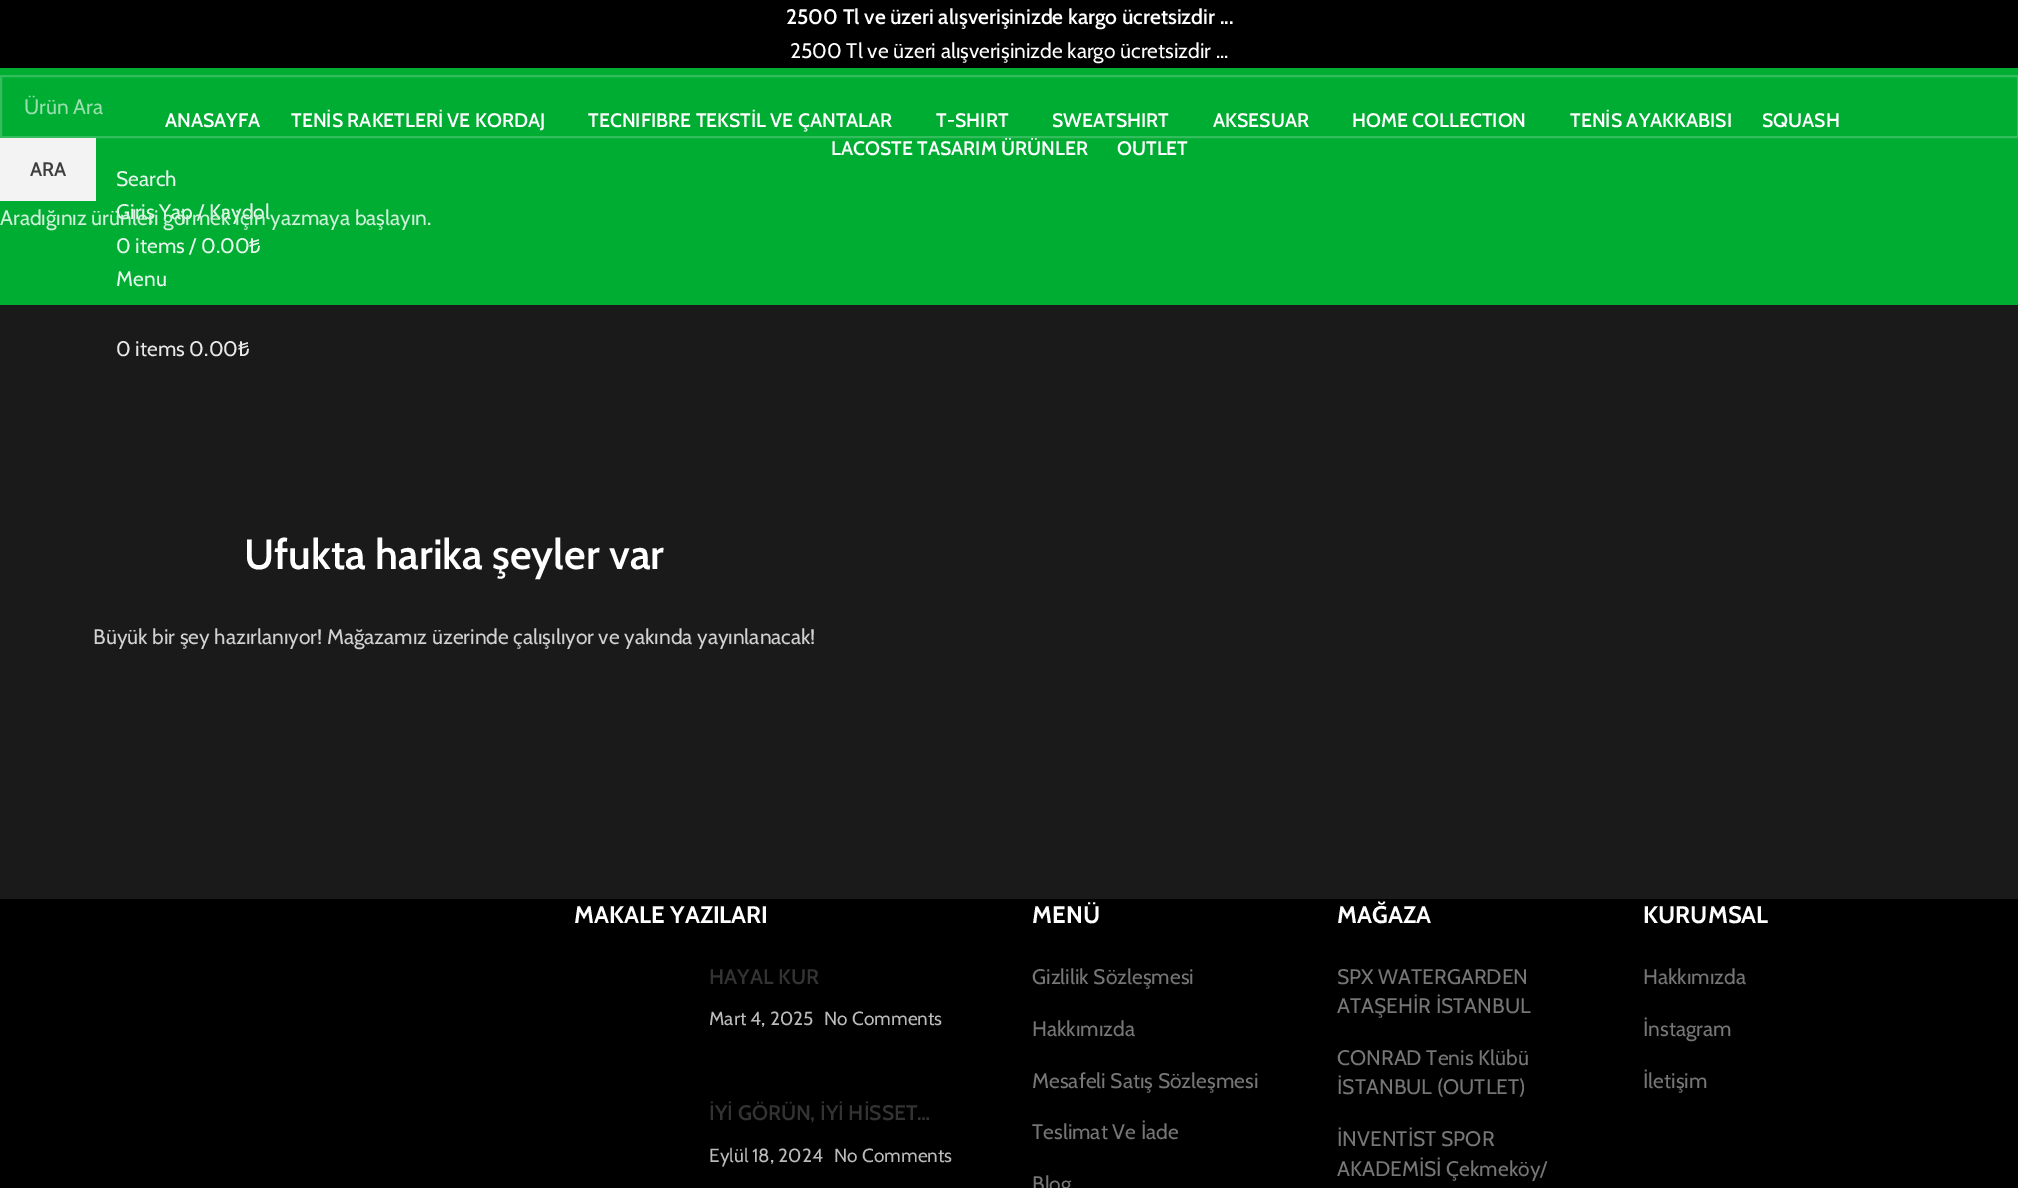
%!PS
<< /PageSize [2018 1188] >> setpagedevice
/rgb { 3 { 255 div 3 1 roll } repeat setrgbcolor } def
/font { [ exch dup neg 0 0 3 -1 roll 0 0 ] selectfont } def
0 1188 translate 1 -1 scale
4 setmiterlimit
0 0 0 rgb
0 0 2018 1188 rectfill
0 173 51 rgb
0 68 2018 237 rectfill
26 26 26 rgb
0 305 2018 594 rectfill
51 189 92 rgb
2 setlinewidth
1 76 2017 61 rectstroke
243 243 243 rgb
0 138 96 63 rectfill
/Cabin-SemiBold 21 font
255 255 255 rgb
786 24 moveto (2500 Tl ve üzeri alışverişinizde kargo ücretsizdir ...) show
/Cabin-Regular 21 font
790 58 moveto (2500 Tl ve üzeri alışverişinizde kargo ücretsizdir ...) show
/Cabin-SemiBold 19.5 font
[
  [(ANASAYFA) 165 127]
  [(TENİS RAKETLERİ VE KORDAJ) 291 127]
  [(TECNIFIBRE TEKSTİL VE ÇANTALAR) 588 127]
  [(T-SHIRT) 936 127]
  [(SWEATSHIRT) 1052 127]
  [(AKSESUAR) 1213 127]
  [(HOME COLLECTION) 1352 127]
  [(TENİS AYAKKABISI) 1570 127]
  [(SQUASH) 1762 127]
  [(LACOSTE TASARIM ÜRÜNLER) 831 155]
  [(OUTLET) 1117 155]
] { aload pop moveto show } forall
/Cabin-Regular 21 font
230 247 235 rgb
[
  [(Search) 116 186]
  [(Giriş Yap / Kaydol) 116 219]
  [(0 items / 0.00₺) 116 253]
  [(Menu) 116 286]
] { aload pop moveto show } forall
232 232 232 rgb
116 356 moveto (0 items 0.00₺) show
/Cabin-SemiBold 42 font
255 255 255 rgb
244 569 moveto (Ufukta harika şeyler var) show
/Cabin-Regular 21 font
209 209 209 rgb
93 644 moveto (Büyük bir şey hazırlanıyor! Mağazamız üzerinde çalışılıyor ve yakında yayınlanacak!) show
/Cabin-Bold 24 font
255 255 255 rgb
574 923 moveto (MAKALE YAZILARI) show
/Cabin-SemiBold 21 font
51 51 51 rgb
709 984 moveto (HAYAL KUR) show
/Cabin-Regular 19 font
187 187 187 rgb
709 1025 moveto (Mart 4, 2025) show
824 1025 moveto (No Comments) show
/Cabin-SemiBold 21 font
51 51 51 rgb
709 1120 moveto (İYİ GÖRÜN, İYİ HİSSET…) show
/Cabin-Regular 19 font
187 187 187 rgb
709 1162 moveto (Eylül 18, 2024) show
834 1162 moveto (No Comments) show
/Cabin-Bold 24 font
255 255 255 rgb
1032 923 moveto (MENÜ) show
/Cabin-Regular 21 font
118 118 118 rgb
[
  [(Gizlilik Sözleşmesi) 1032 984]
  [(Hakkımızda) 1032 1036]
  [(Mesafeli Satış Sözleşmesi) 1032 1088]
  [(Teslimat Ve İade) 1032 1139]
  [(Blog) 1032 1191]
] { aload pop moveto show } forall
/Cabin-Bold 24 font
255 255 255 rgb
1337 923 moveto (MAĞAZA) show
/Cabin-Regular 21 font
118 118 118 rgb
[
  [(SPX WATERGARDEN) 1337 984]
  [(ATAŞEHİR İSTANBUL) 1337 1013]
  [(CONRAD Tenis Klübü) 1337 1065]
  [(İSTANBUL \(OUTLET\)) 1337 1094]
  [(İNVENTİST SPOR) 1337 1146]
  [(AKADEMİSİ Çekmeköy/) 1337 1176]
] { aload pop moveto show } forall
/Cabin-Bold 24 font
255 255 255 rgb
1643 923 moveto (KURUMSAL) show
/Cabin-Regular 21 font
118 118 118 rgb
[
  [(Hakkımızda) 1643 984]
  [(İnstagram) 1643 1036]
  [(İletişim) 1643 1088]
] { aload pop moveto show } forall
153 222 173 rgb
24 114 moveto (Ürün Ara) show
/Cabin-SemiBold 19.5 font
62 62 62 rgb
30 176 moveto (ARA) show
/Cabin-Regular 21 font
207 240 217 rgb
0 225 moveto (Aradığınız ürünleri görmek için yazmaya başlayın.) show
showpage
